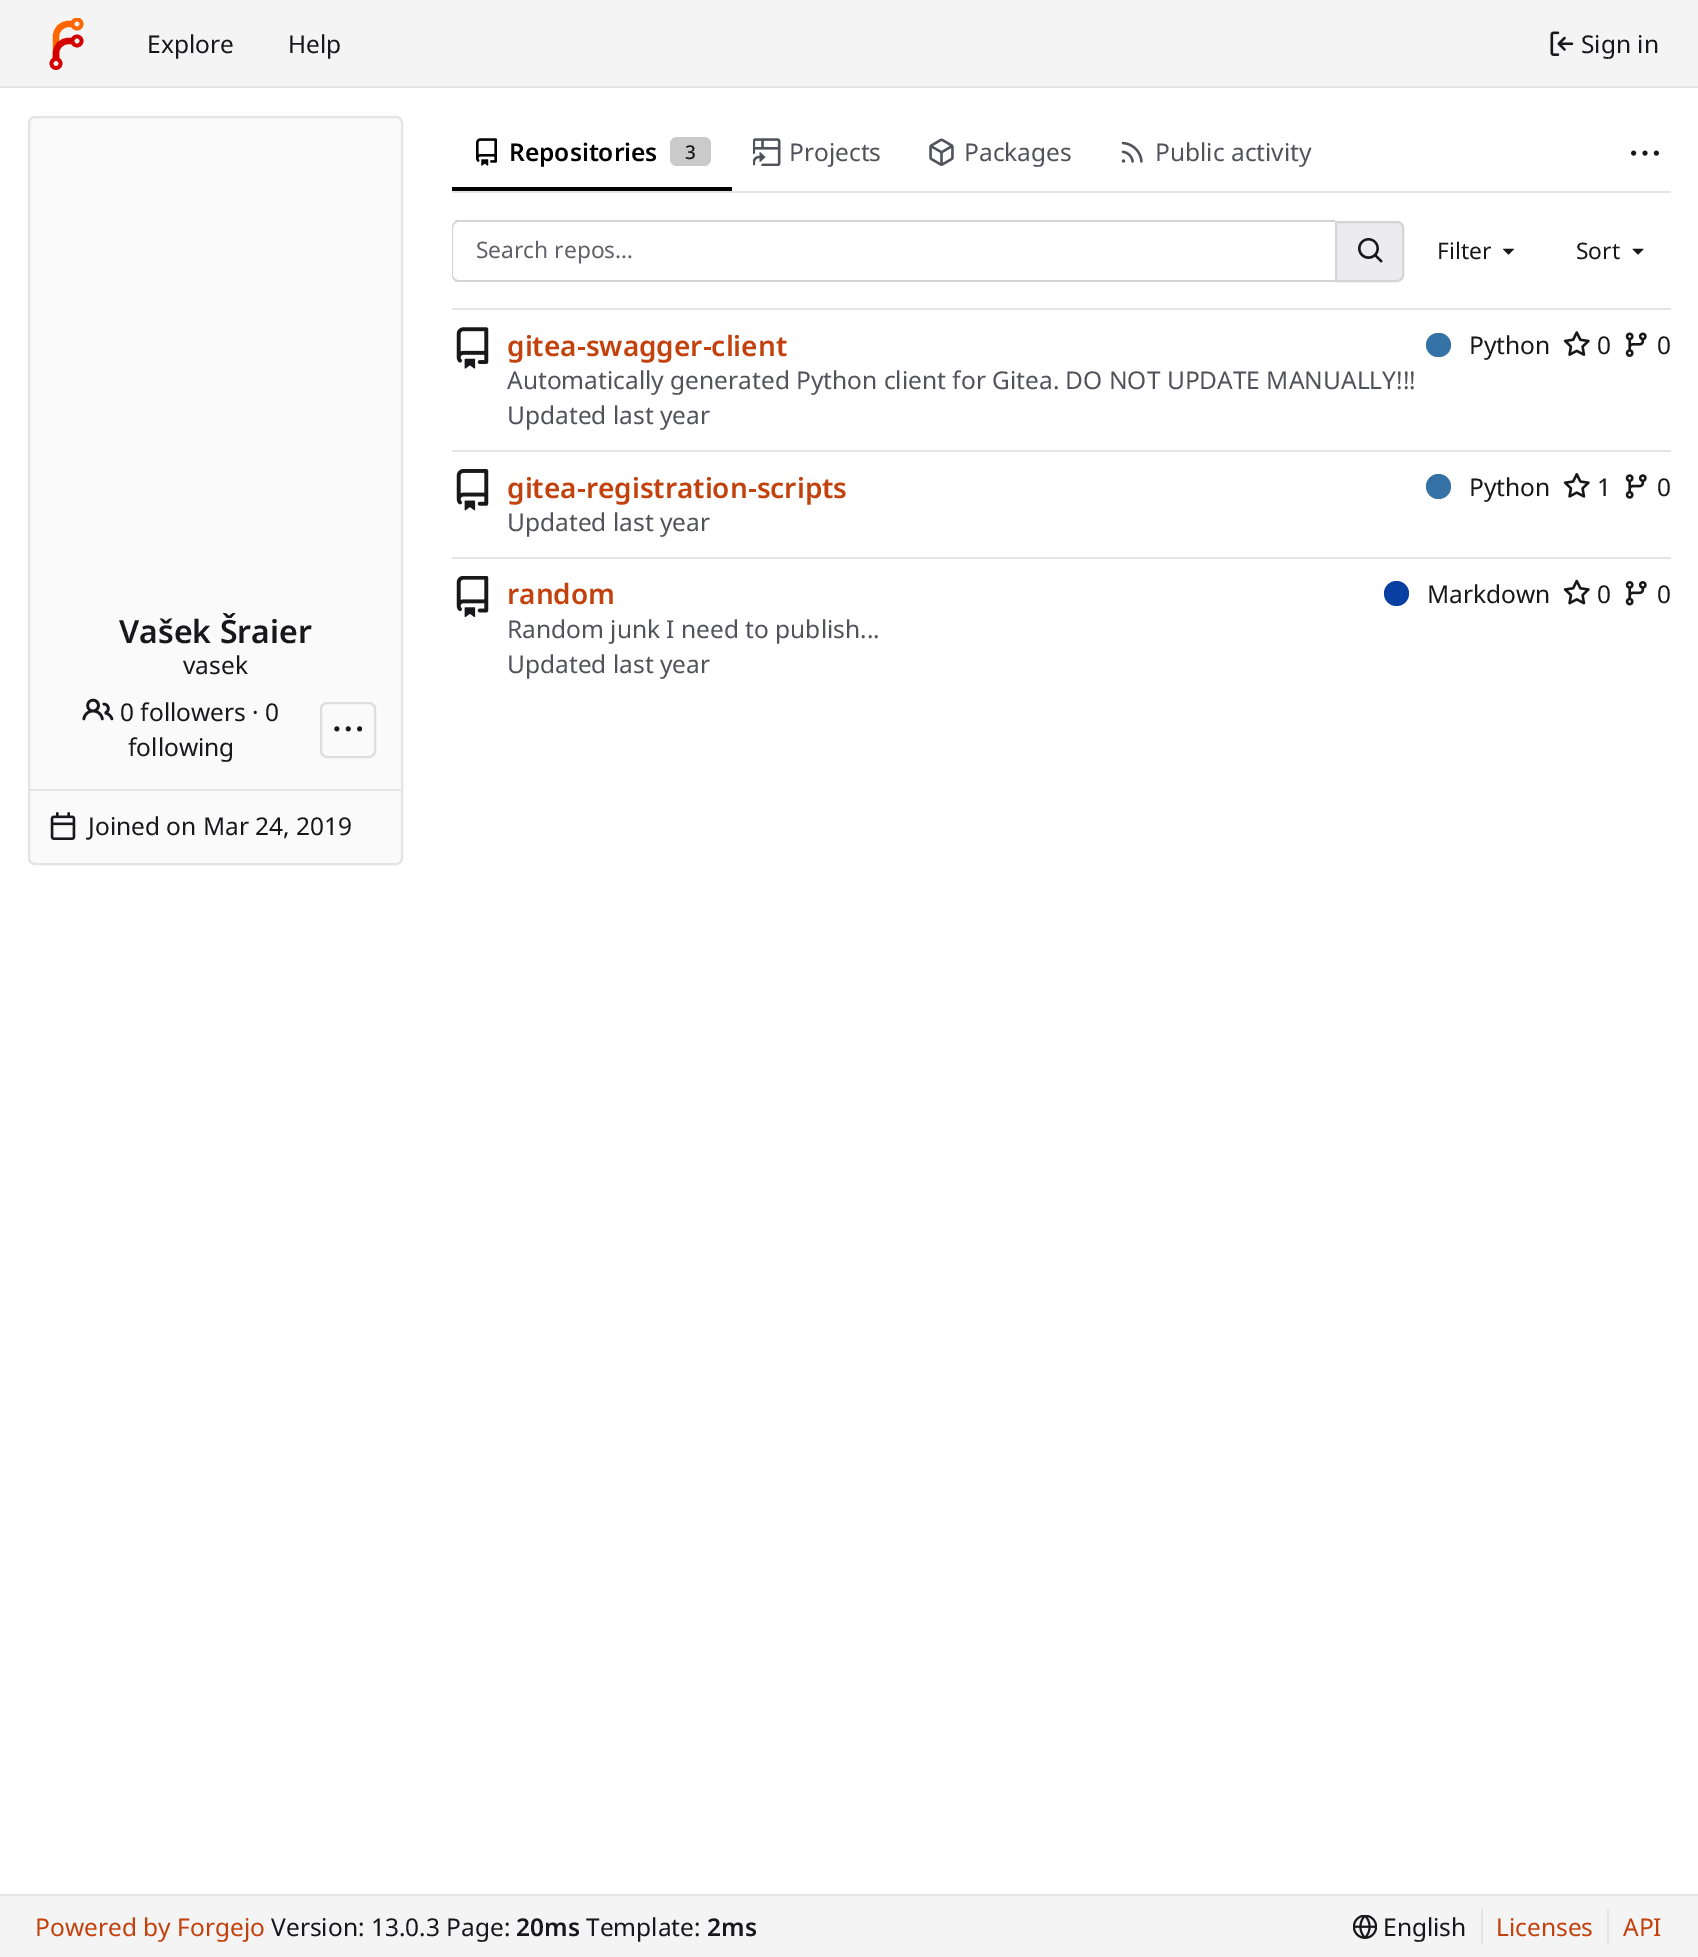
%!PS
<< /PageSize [1698 1957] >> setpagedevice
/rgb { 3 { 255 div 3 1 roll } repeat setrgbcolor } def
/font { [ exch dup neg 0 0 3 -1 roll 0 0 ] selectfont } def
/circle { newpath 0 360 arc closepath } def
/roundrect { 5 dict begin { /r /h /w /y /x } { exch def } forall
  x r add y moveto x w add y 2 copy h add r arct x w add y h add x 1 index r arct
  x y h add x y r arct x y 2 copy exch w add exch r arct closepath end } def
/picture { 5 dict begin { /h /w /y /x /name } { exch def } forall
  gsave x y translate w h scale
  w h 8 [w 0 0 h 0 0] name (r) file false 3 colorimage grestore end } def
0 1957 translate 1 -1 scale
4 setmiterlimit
255 255 255 rgb
0 0 1698 1957 rectfill
244 244 245 rgb
0 0 1698 86 rectfill
228 228 231 rgb
0 86 1698 2 rectfill
255 102 0 rgb
6.2 setlinewidth
56 60.5 moveto 56 36.5 lineto 56 29.5 61.5 24 68.5 24 curveto 73.5 24 lineto stroke
212 0 0 rgb
56 60.5 moveto 56 53 lineto 56 46.5 61.5 41 68.5 41 curveto 73.5 41 lineto stroke
gsave
40 18 53 52 rectclip
255 102 0 rgb
3.7 setlinewidth
77 24 4.5 circle stroke
grestore
3.7 setlinewidth
77 41 4.5 circle stroke
56 63.5 4.5 circle stroke
(img/1.rgb) 1550 31 24 25 picture
228 228 231 rgb
452 191 1219 2 rectfill
0 0 0 rgb
452 187 280 4 rectfill
(img/2.rgb) 476 138 21 28 picture
202 202 202 rgb
670 137 41 29 7 roundrect fill
(img/3.rgb) 753 138 28 28 picture
(img/4.rgb) 929 138 25 28 picture
(img/5.rgb) 1121 141 22 22 picture
(img/6.rgb) 1631 150 28 6 picture
212 212 216 rgb
458 220 moveto 1335 220 lineto 1335 282 lineto 458 282 lineto 455 282 452 279 452 275 curveto 452 228 lineto 452 224 455 220 458 220 curveto closepath 458 222 moveto 1335 222 lineto 1335 280 lineto 458 280 lineto 456 280 453 278 453 275 curveto 453 228 lineto 453 225 456 222 458 222 curveto closepath eofill
236 236 238 rgb
1336 222 moveto 1397 222 lineto 1400.5 222 1403 224.5 1403 228 curveto 1403 275 lineto 1403 278.5 1400.5 281 1397 281 curveto 1336 281 lineto closepath gsave fill grestore
212 212 216 rgb
2 setlinewidth
stroke
(img/7.rgb) 1358 238 25 25 picture
(img/8.rgb) 1503 248 11 7 picture
(img/9.rgb) 1632 248 12 7 picture
228 228 231 rgb
452 308 1219 2 rectfill
(img/10.rgb) 456 327 33 42 picture
53 114 165 rgb
1426 333 25 24 12 roundrect fill
(img/11.rgb) 1563 331 27 25 picture
(img/12.rgb) 1625 332 22 25 picture
228 228 231 rgb
452 450 1219 2 rectfill
(img/13.rgb) 456 469 33 42 picture
53 114 165 rgb
1438.5 486.5 12.5 circle fill
(img/14.rgb) 1563 473 27 25 picture
(img/15.rgb) 1625 474 22 25 picture
228 228 231 rgb
452 557 1219 2 rectfill
(img/16.rgb) 456 576 33 42 picture
8 63 161 rgb
1396.5 593.5 12.5 circle fill
(img/17.rgb) 1563 579 27 26 picture
(img/18.rgb) 1625 581 22 25 picture
250 250 250 rgb
29 117 373 747 6 roundrect gsave fill grestore
228 228 231 rgb
stroke
(img/19.rgb) 82 698 32 23 picture
222 222 222 rgb
321 703 54 54 6 roundrect stroke
(img/20.rgb) 334 726 28 6 picture
228 228 231 rgb
30 789 371 2 rectfill
(img/21.rgb) 50 812 26 28 picture
244 244 245 rgb
0 1896 1698 61 rectfill
228 228 231 rgb
0 1894 1698 2 rectfill
(img/22.rgb) 1353 1915 24 24 picture
1481 1909 2 35 rectfill
1607 1909 2 35 rectfill
/NotoSans-Regular 24.5 font
24 24 27 rgb
[
  [(Explore) 147 53]
  [(Help) 288 53]
  [(Sign in) 1581 53]
] { aload pop moveto show } forall
/NotoSans-SemiBold 24.5 font
0 0 0 rgb
509 161 moveto (Repositories) show
/NotoSans-Medium 19 font
24 24 27 rgb
685 159 moveto (3) show
/NotoSans-Regular 24.5 font
82 82 91 rgb
[
  [(Projects) 789 161]
  [(Packages) 964 161]
  [(Public activity) 1155 161]
] { aload pop moveto show } forall
/NotoSans-Regular 22.75 font
97 97 106 rgb
476 258 moveto (Search repos…) show
24 24 27 rgb
1437 259 moveto (Filter) show
1576 259 moveto (Sort) show
/NotoSans-SemiBold 28 font
194 65 12 rgb
507 356 moveto (gitea-swagger-client) show
/NotoSans-Regular 24.5 font
24 24 27 rgb
[
  [(Python) 1469 354]
  [(0) 1597 354]
  [(0) 1657 354]
] { aload pop moveto show } forall
82 82 91 rgb
507 389 moveto (Automatically generated Python client for Gitea. DO NOT UPDATE MANUALLY!!!) show
507 424 moveto (Updated last year) show
/NotoSans-SemiBold 28 font
194 65 12 rgb
507 498 moveto (gitea-registration-scripts) show
/NotoSans-Regular 24.5 font
24 24 27 rgb
[
  [(Python) 1469 496]
  [(1) 1597 496]
  [(0) 1657 496]
] { aload pop moveto show } forall
82 82 91 rgb
507 531 moveto (Updated last year) show
/NotoSans-SemiBold 28 font
194 65 12 rgb
507 604 moveto (random) show
/NotoSans-Regular 24.5 font
24 24 27 rgb
[
  [(Markdown) 1427 603]
  [(0) 1597 603]
  [(0) 1657 603]
] { aload pop moveto show } forall
82 82 91 rgb
507 638 moveto (Random junk I need to publish...) show
507 673 moveto (Updated last year) show
/NotoSans-SemiBold 32 font
24 24 27 rgb
119 643 moveto (Vašek Šraier) show
/NotoSans-Regular 24.5 font
[
  [(vasek) 183 674]
  [(0 followers · 0) 120 721]
  [(following) 128 756]
  [(Joined on Mar 24, 2019) 88 835]
] { aload pop moveto show } forall
194 65 12 rgb
35 1936 moveto (Powered by Forgejo) show
24 24 27 rgb
271 1936 moveto (Version: 13.0.3 Page:) show
/NotoSans-SemiBold 24.5 font
516 1936 moveto (20ms) show
/NotoSans-Regular 24.5 font
586 1936 moveto (Template:) show
/NotoSans-SemiBold 24.5 font
707 1936 moveto (2ms) show
/NotoSans-Regular 24.5 font
1383 1936 moveto (English) show
194 65 12 rgb
1496 1936 moveto (Licenses) show
1623 1936 moveto (API) show
showpage
